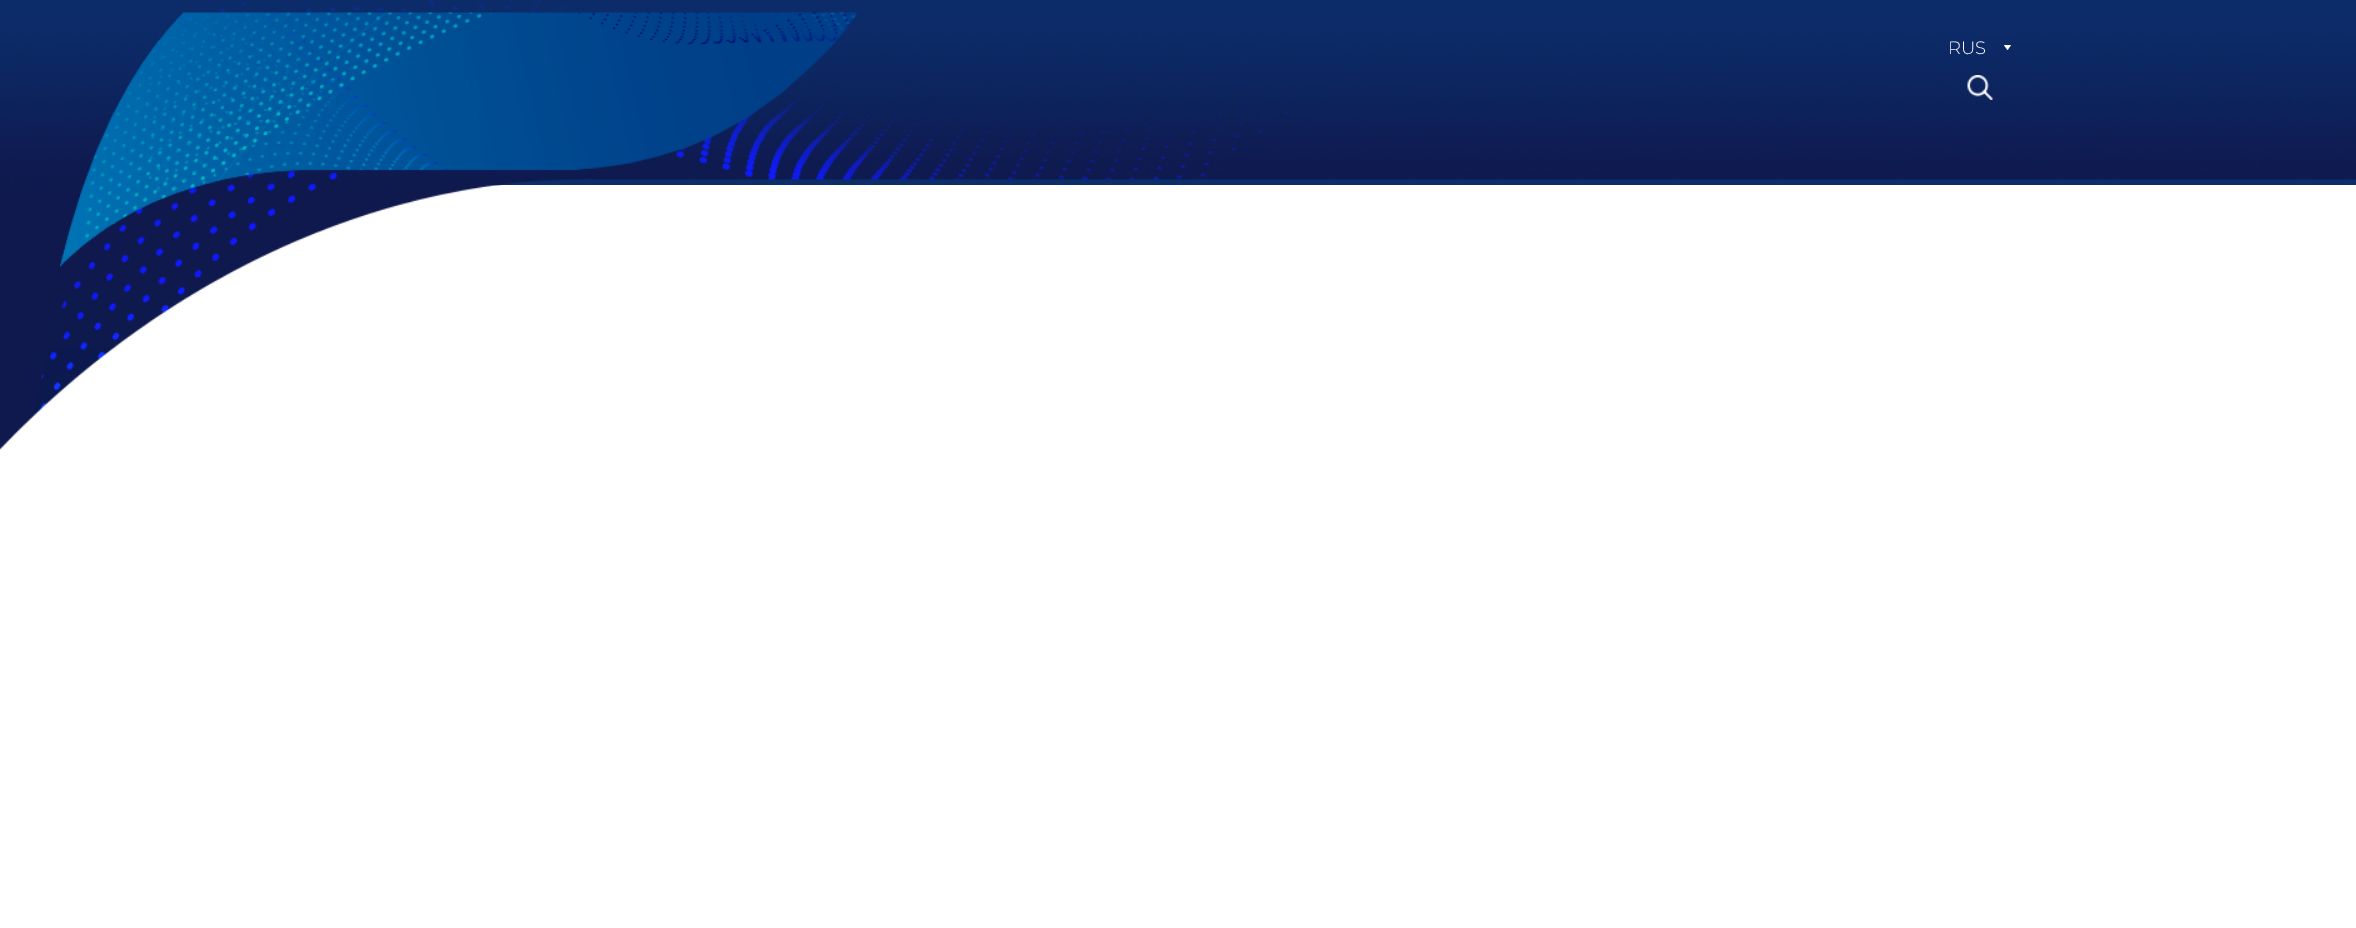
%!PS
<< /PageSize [2356 928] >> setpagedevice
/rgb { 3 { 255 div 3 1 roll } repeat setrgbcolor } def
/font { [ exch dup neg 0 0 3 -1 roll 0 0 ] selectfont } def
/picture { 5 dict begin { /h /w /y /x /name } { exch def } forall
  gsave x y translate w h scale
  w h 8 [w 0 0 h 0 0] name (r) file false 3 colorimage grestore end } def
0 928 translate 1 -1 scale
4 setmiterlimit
255 255 255 rgb
0 0 2356 928 rectfill
gsave 492 177 moveto 2356 177 lineto 2356 185 lineto 492 185 lineto closepath clip newpath
<< /ShadingType 2 /ColorSpace /DeviceRGB /Coords [1178 0 1178 185] /Extend [true true] /Function << /FunctionType 2 /Domain [0 1] /C0 [0.059 0.098 0.31] /C1 [0.047 0.18 0.42] /N 1 >> >> shfill grestore
(img/1.rgb) 0 0 2356 450 picture
(img/2.rgb) 60 12 798 255 picture
2004 45 moveto 2011 45 lineto 2007.5 50 lineto closepath fill
(img/3.rgb) 1967 75 26 25 picture
/Montserrat-Light 18 font
1948 54 moveto (RUS) show
showpage
